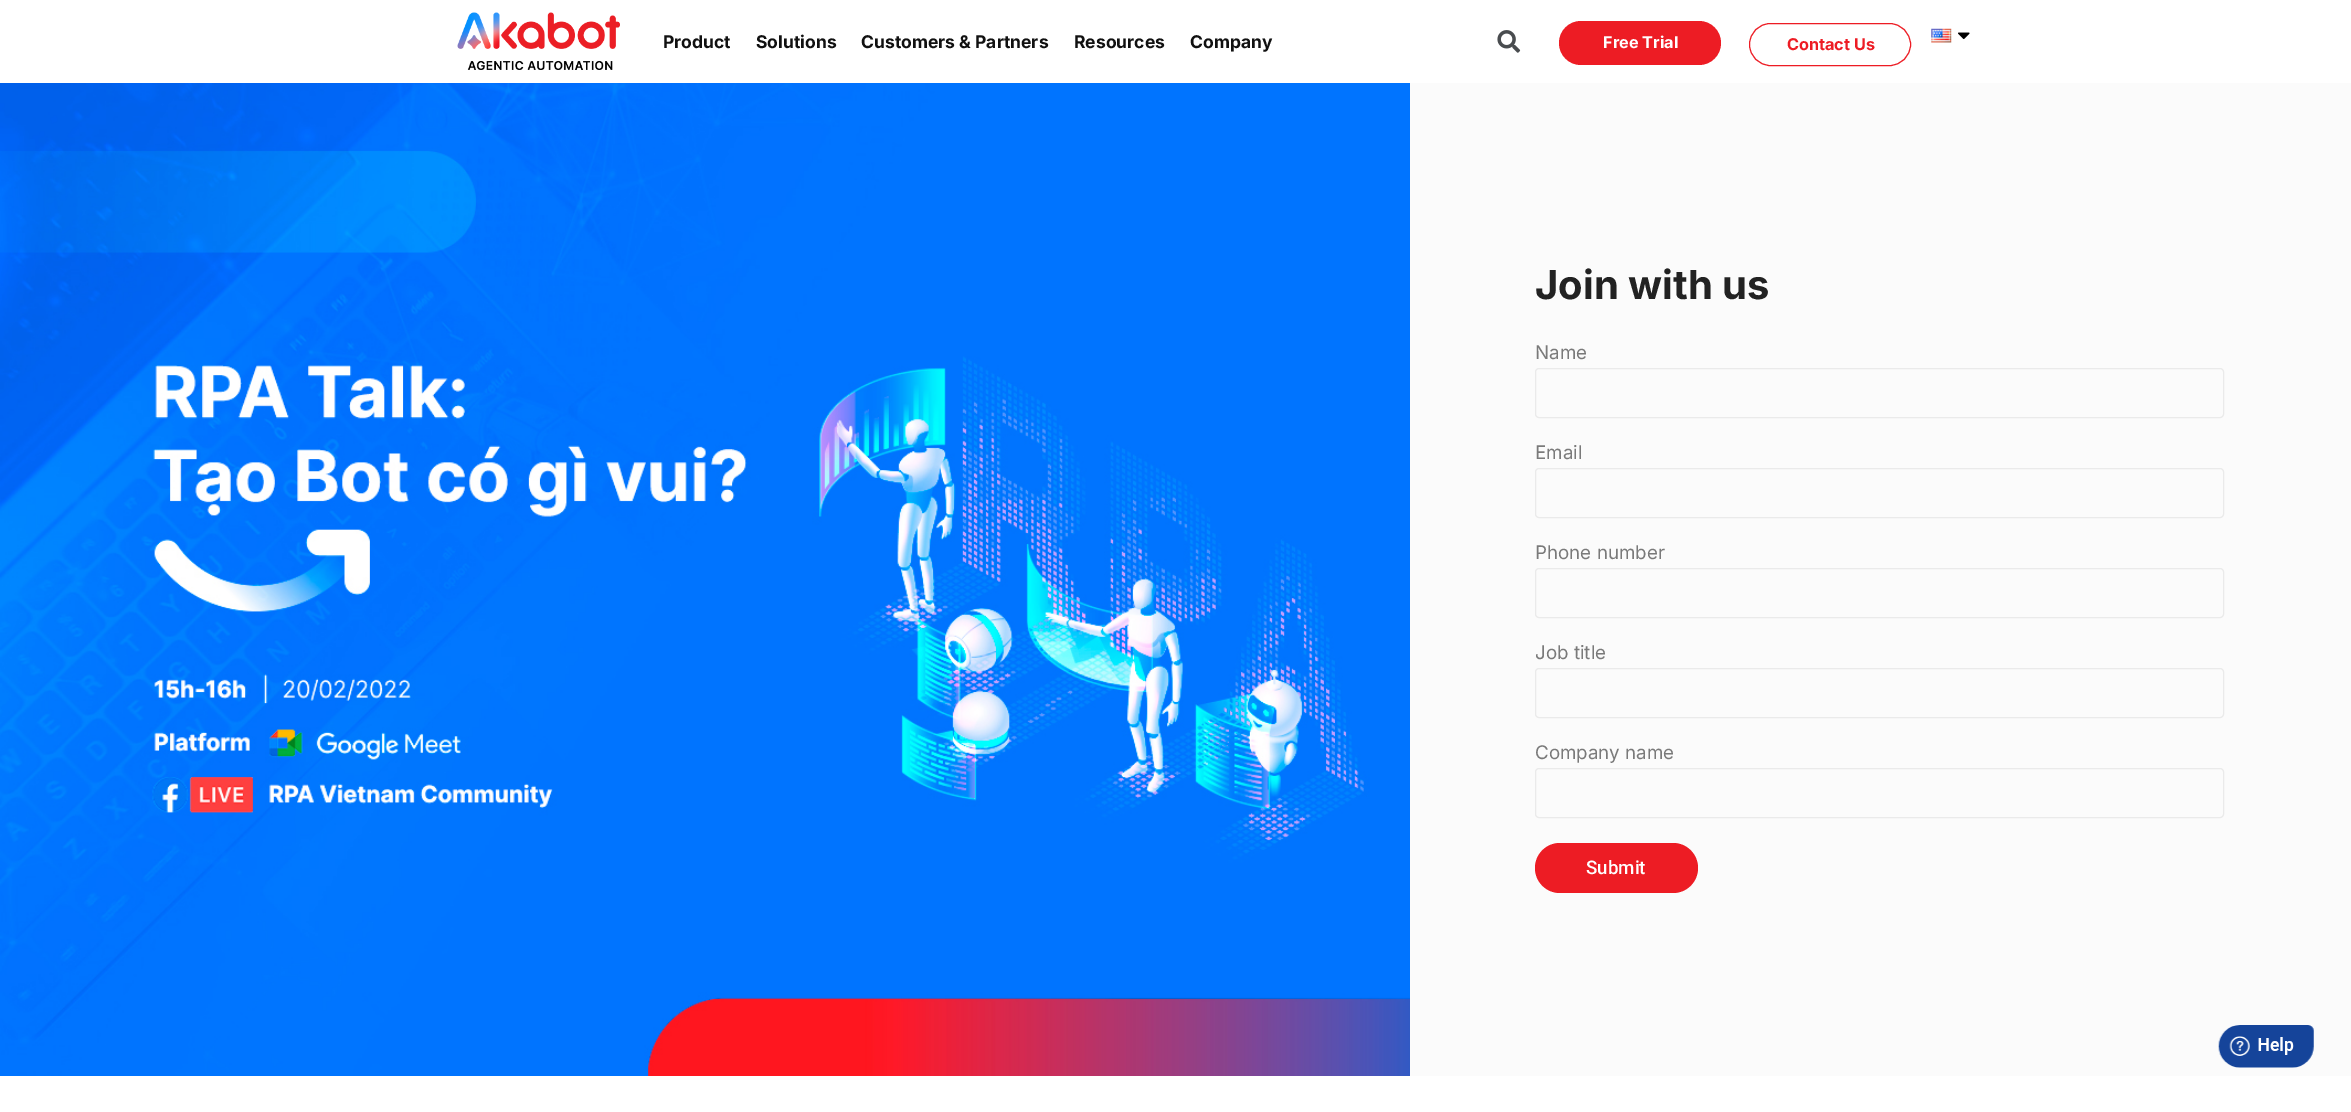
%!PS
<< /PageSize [2351 1112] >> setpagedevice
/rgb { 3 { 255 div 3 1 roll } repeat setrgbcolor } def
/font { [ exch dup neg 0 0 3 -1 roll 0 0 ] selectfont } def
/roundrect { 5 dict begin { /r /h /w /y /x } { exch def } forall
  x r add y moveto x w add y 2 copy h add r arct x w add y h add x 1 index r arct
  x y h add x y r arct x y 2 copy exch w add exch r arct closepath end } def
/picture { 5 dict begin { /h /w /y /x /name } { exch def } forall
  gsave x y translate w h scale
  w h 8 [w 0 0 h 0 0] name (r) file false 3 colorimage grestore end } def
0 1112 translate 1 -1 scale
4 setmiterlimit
251 251 251 rgb
0 0 2351 1112 rectfill
255 255 255 rgb
0 0 2351 83 rectfill
(img/1.rgb) 457 12 163 58 picture
(img/2.rgb) 1497 30 24 23 picture
237 28 36 rgb
1559 21 162 44 22 roundrect fill
1749.5 23.5 161 42 21 roundrect stroke
(img/3.rgb) 1931 28 21 15 picture
(img/4.rgb) 1958 32 12 8 picture
(img/5.rgb) 0 83 1410 993 picture
234 234 234 rgb
1535.5 368.5 688 49 3.5 roundrect stroke
1535.5 468.5 688 49 3.5 roundrect stroke
1535.5 568.5 688 49 3.5 roundrect stroke
1535.5 668.5 688 49 3.5 roundrect stroke
1535.5 768.5 688 49 3.5 roundrect stroke
237 28 36 rgb
1535 843 163 50 25 roundrect fill
(img/6.rgb) 2218 1025 96 43 picture
255 255 255 rgb
0 1076 2351 36 rectfill
/Inter-Bold 17.5 font
17 17 17 rgb
[
  [(Product) 663 48]
  [(Solutions) 756 48]
  [(Customers & Partners) 861 48]
  [(Resources) 1074 48]
  [(Company) 1190 48]
] { aload pop moveto show } forall
/Inter-Bold 16.25 font
255 255 255 rgb
1603 48 moveto (Free Trial) show
237 28 36 rgb
1787 50 moveto (Contact Us) show
/Inter-Bold 40 font
34 34 34 rgb
1535 299 moveto (Join with us) show
/Inter-Regular 18.75 font
122 122 122 rgb
[
  [(Name) 1535 359]
  [(Email) 1535 459]
  [(Phone number) 1535 559]
  [(Job title) 1535 659]
  [(Company name) 1535 759]
] { aload pop moveto show } forall
/Roboto-Medium 18.75 font
255 255 255 rgb
1586 874 moveto (Submit) show
showpage
